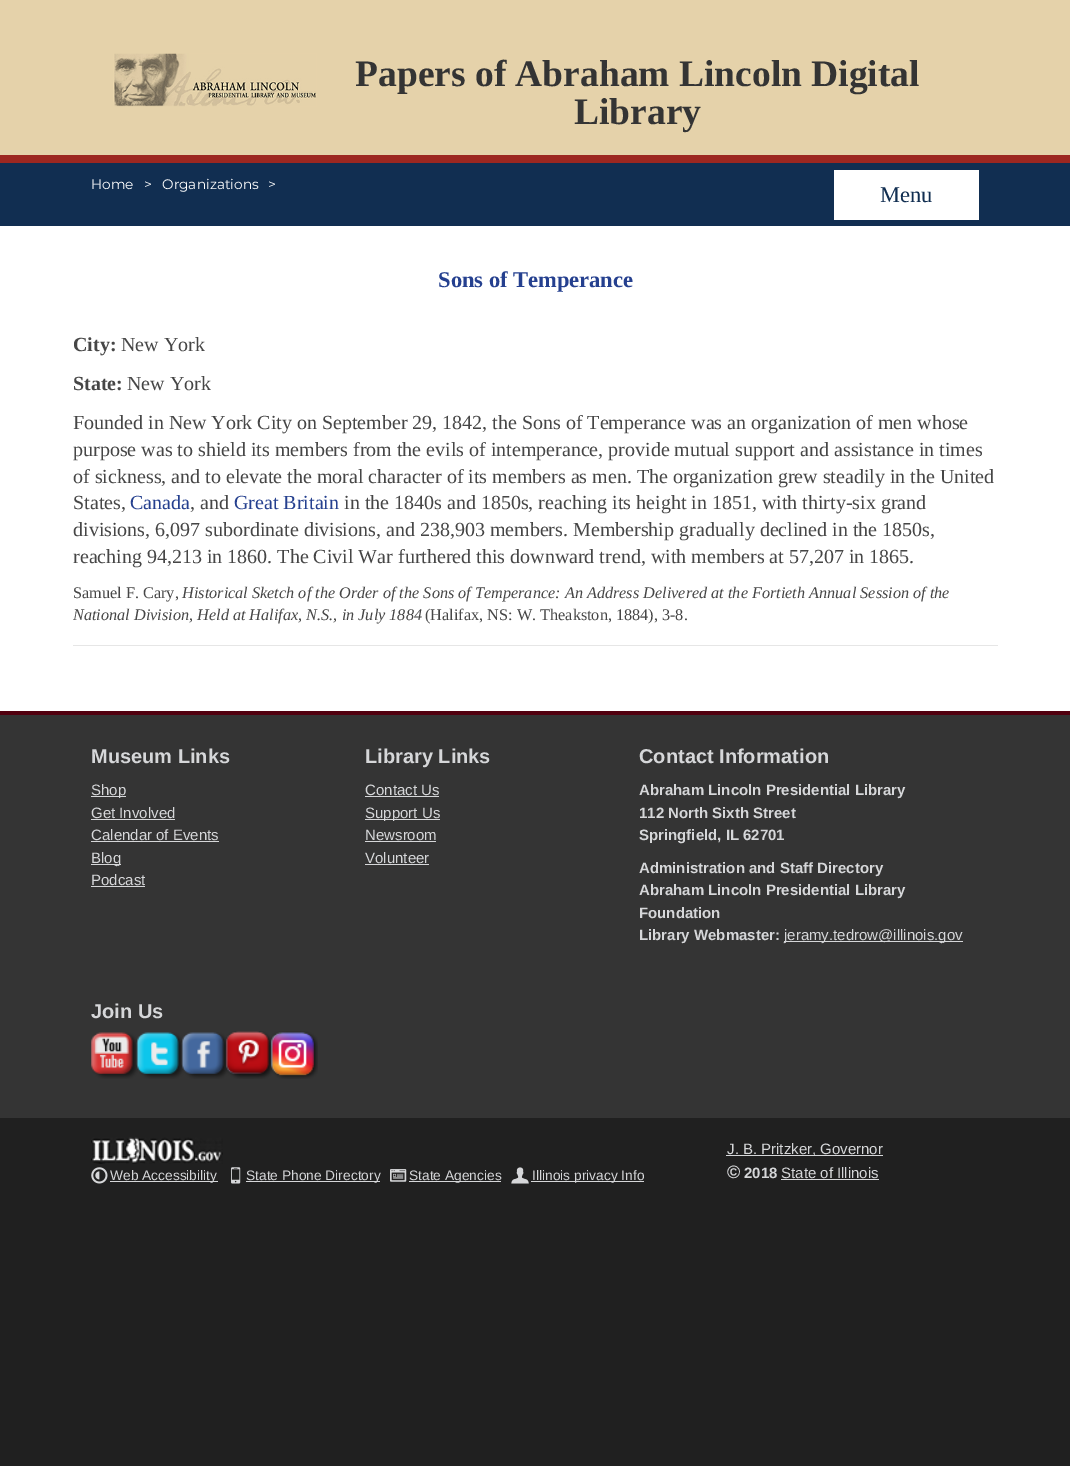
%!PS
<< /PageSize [1070 1466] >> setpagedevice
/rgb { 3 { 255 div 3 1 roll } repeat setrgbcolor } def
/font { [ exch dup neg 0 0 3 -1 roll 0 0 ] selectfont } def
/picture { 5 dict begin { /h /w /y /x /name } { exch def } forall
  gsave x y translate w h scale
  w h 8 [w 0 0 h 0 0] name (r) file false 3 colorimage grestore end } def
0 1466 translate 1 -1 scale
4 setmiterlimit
32 32 32 rgb
0 0 1070 1466 rectfill
[
  [0 226 1070 485 255 255 255]
  [0 0 1070 155 229 210 170]
  [0 155 1070 8 157 39 32]
] { aload pop rgb rectfill } forall
(img/1.rgb) 113 53 204 54 picture
[
  [0 163 1070 63 17 46 81]
  [834 170 145 50 255 255 255]
  [73 645 925 1 230 230 230]
  [0 715 1070 403 52 52 52]
  [0 711 1070 4 81 0 15]
  [91 796 35 1 214 215 217]
  [91 819 84 1 214 215 217]
  [91 841 128 1 214 215 217]
  [91 864 30 1 214 215 217]
  [91 886 54 1 214 215 217]
  [365 796 74 1 214 215 217]
  [365 819 75 1 214 215 217]
  [365 841 71 1 214 215 217]
  [365 864 64 1 214 215 217]
  [784 941 179 1 214 215 217]
] { aload pop rgb rectfill } forall
(img/2.rgb) 91 1032 47 47 picture
(img/3.rgb) 136 1032 48 47 picture
(img/4.rgb) 181 1032 48 47 picture
(img/5.rgb) 226 1031 48 48 picture
(img/6.rgb) 271 1031 47 48 picture
(img/7.rgb) 91 1137 132 27 picture
(img/8.rgb) 91 1167 17 17 picture
110 1181 108 1 rectfill
(img/9.rgb) 231 1167 10 17 picture
246 1181 134 1 rectfill
(img/10.rgb) 390 1169 17 13 picture
409 1181 92 1 rectfill
(img/11.rgb) 511 1167 18 17 picture
[
  [531 1181 113 1 214 215 217]
  [726 1155 157 1 214 215 217]
  [781 1179 98 1 214 215 217]
] { aload pop rgb rectfill } forall
/LiberationSerif-Bold 37.5 font
52 52 52 rgb
355 86 moveto (Papers of Abraham Lincoln Digital) show
574 124 moveto (Library) show
/Montserrat-Regular 13.75 font
255 255 255 rgb
[
  [(Home) 91 189]
  [(>) 144 189]
  [(Organizations) 162 189]
  [(>) 268 189]
] { aload pop moveto show } forall
/LiberationSerif-Regular 22.5 font
17 46 81 rgb
880 202 moveto (Menu) show
/LiberationSerif-Bold 22.5 font
37 64 143 rgb
438 287 moveto (Sons of Temperance) show
/LiberationSerif-Bold 20 font
70 70 70 rgb
73 351 moveto (City:) show
/LiberationSerif-Regular 20 font
121 351 moveto (New York) show
/LiberationSerif-Bold 20 font
73 390 moveto (State:) show
/LiberationSerif-Regular 20 font
[
  [(New York) 127 390]
  [(Founded in New York City on September 29, 1842, the Sons of Temperance was an organization of men whose) 73 429]
  [(purpose was to shield its members from the evils of intemperance, provide mutual support and assistance in times) 73 456]
  [(of sickness, and to elevate the moral character of its members as men. The organization grew steadily in the United) 73 483]
  [(States,) 73 509]
] { aload pop moveto show } forall
37 64 143 rgb
130 509 moveto (Canada) show
70 70 70 rgb
190 509 moveto (, and) show
37 64 143 rgb
234 509 moveto (Great Britain) show
70 70 70 rgb
[
  [(in the 1840s and 1850s, reaching its height in 1851, with thirty-six grand) 344 509]
  [(divisions, 6,097 subordinate divisions, and 238,903 members. Membership gradually declined in the 1850s,) 73 536]
  [(reaching 94,213 in 1860. The Civil War furthered this downward trend, with members at 57,207 in 1865.) 73 563]
] { aload pop moveto show } forall
/LiberationSerif-Regular 16.25 font
73 598 moveto (Samuel F. Cary,) show
/LiberationSerif-Italic 16.25 font
182 598 moveto (Historical Sketch of the Order of the Sons of Temperance: An Address Delivered at the Fortieth Annual Session of the) show
73 620 moveto (National Division, Held at Halifax, N.S., in July 1884) show
/LiberationSerif-Regular 16.25 font
425 620 moveto (\(Halifax, NS: W. Theakston, 1884\), 3-8.) show
/LiberationSans-Bold 20 font
214 215 217 rgb
91 763 moveto (Museum Links) show
/LiberationSans-Regular 15 font
[
  [(Shop) 91 795]
  [(Get Involved) 91 818]
  [(Calendar of Events) 91 840]
  [(Blog) 91 863]
  [(Podcast) 91 885]
] { aload pop moveto show } forall
/LiberationSans-Bold 20 font
365 763 moveto (Library Links) show
/LiberationSans-Regular 15 font
[
  [(Contact Us) 365 795]
  [(Support Us) 365 818]
  [(Newsroom) 365 840]
  [(Volunteer) 365 863]
] { aload pop moveto show } forall
/LiberationSans-Bold 20 font
639 763 moveto (Contact Information) show
/LiberationSans-Bold 15 font
[
  [(Abraham Lincoln Presidential Library) 639 795]
  [(112 North Sixth Street) 639 818]
  [(Springfield, IL 62701) 639 840]
  [(Administration and Staff Directory) 639 873]
  [(Abraham Lincoln Presidential Library) 639 895]
  [(Foundation) 639 918]
  [(Library Webmaster:) 639 940]
] { aload pop moveto show } forall
/LiberationSans-Regular 15 font
784 940 moveto (jeramy.tedrow@illinois.gov) show
/LiberationSans-Bold 20 font
91 1018 moveto (Join Us) show
/LiberationSans-Regular 13.75 font
[
  [(Web Accessibility) 110 1180]
  [(State Phone Directory) 246 1180]
  [(State Agencies) 409 1180]
  [(Illinois privacy Info) 532 1180]
] { aload pop moveto show } forall
/LiberationSans-Regular 15 font
727 1154 moveto (J. B. Pritzker, Governor) show
/LiberationSans-Bold 18 font
727 1178 moveto (©) show
/LiberationSans-Bold 15 font
744 1178 moveto (2018) show
/LiberationSans-Regular 15 font
781 1178 moveto (State of Illinois) show
showpage
